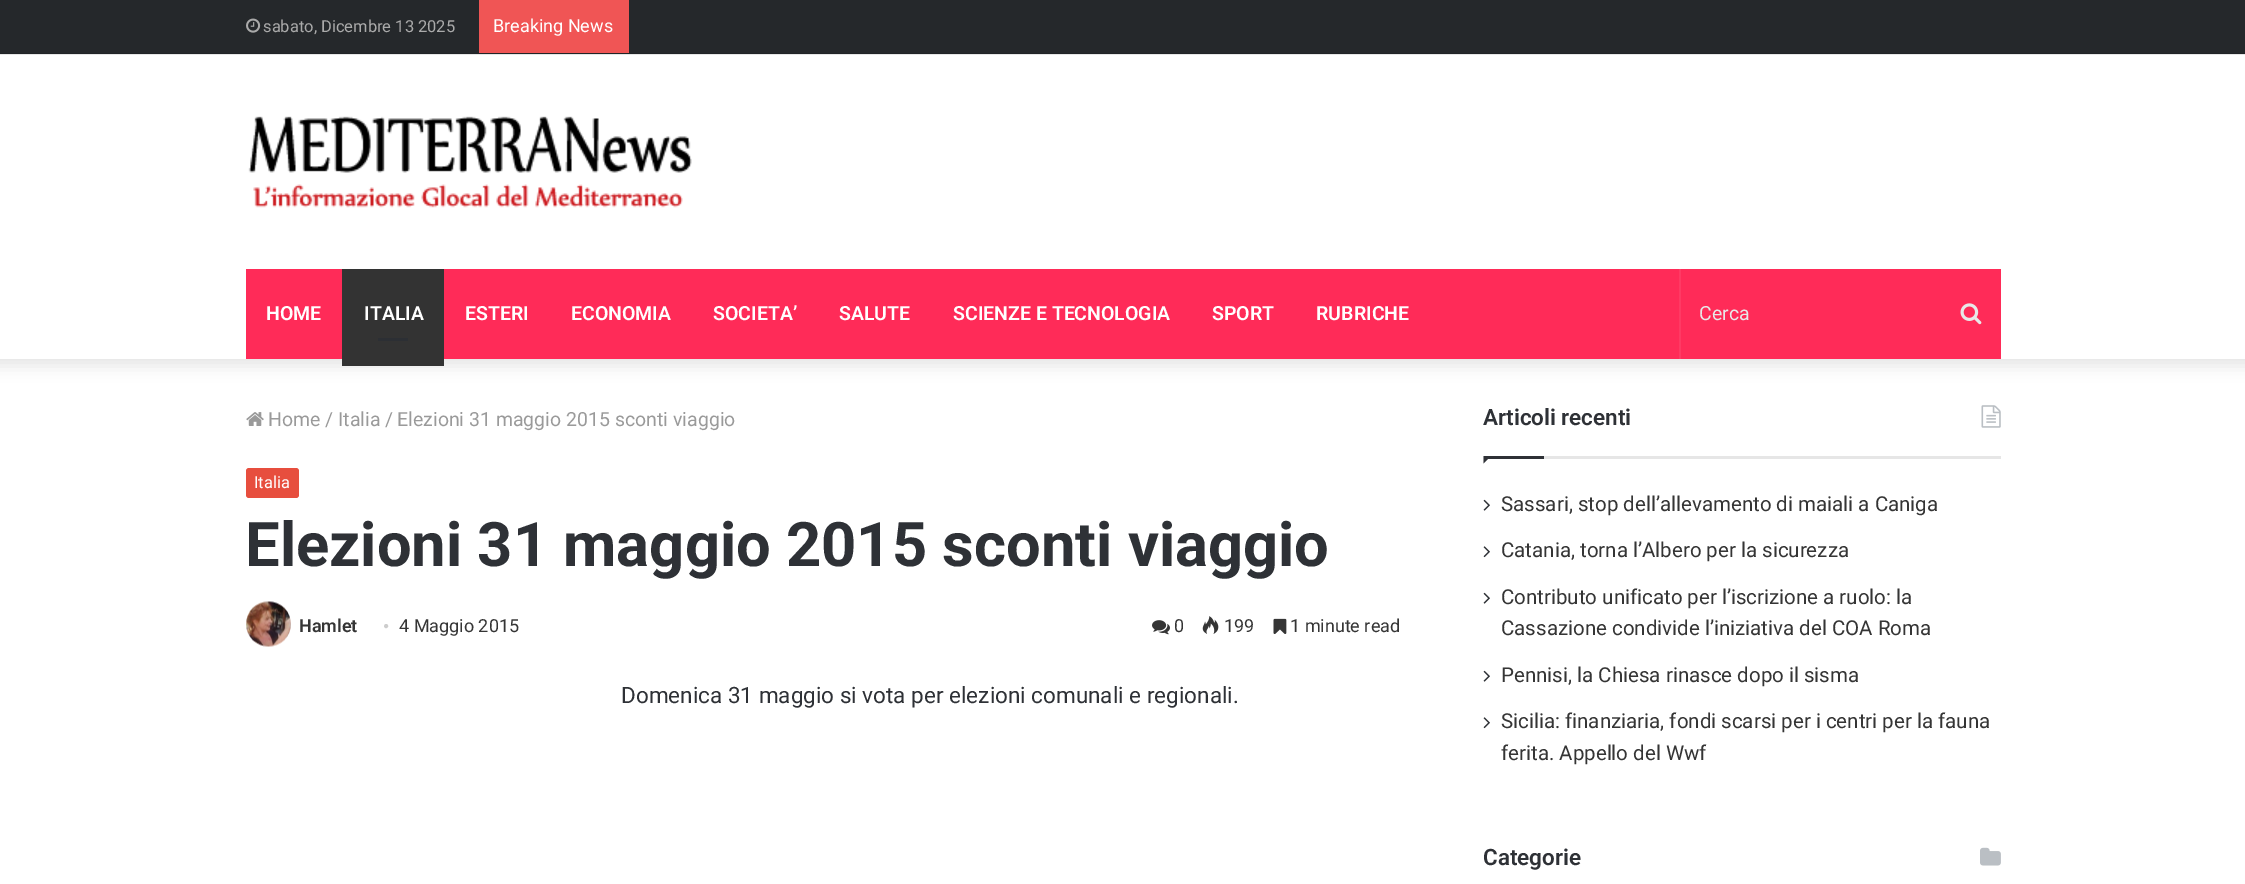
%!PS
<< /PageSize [2245 884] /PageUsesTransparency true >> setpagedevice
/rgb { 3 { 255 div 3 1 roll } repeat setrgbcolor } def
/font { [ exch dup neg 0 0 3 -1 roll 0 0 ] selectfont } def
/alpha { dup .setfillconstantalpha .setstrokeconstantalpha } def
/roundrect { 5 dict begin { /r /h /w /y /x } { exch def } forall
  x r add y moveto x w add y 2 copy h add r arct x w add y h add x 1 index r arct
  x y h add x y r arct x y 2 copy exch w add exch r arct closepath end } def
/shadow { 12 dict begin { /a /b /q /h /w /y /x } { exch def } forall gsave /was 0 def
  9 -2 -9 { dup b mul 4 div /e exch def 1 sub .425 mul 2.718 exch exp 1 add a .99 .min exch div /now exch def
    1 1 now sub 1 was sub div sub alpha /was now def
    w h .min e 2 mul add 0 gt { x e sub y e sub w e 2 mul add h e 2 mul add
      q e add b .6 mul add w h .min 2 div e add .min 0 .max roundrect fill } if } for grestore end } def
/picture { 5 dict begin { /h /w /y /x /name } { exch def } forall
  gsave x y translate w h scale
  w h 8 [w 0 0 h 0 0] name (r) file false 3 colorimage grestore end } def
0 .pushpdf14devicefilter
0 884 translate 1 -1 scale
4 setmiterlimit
255 255 255 rgb
0 0 2245 884 rectfill
0 0 0 rgb
-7 -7 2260 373 0 7.5 0.1 shadow
[
  [0 55 2245 304 255 255 255]
  [0 54 2245 1 230 230 230]
  [0 0 2245 53 37 40 43]
  [0 53 2245 1 33 36 39]
] { aload pop rgb rectfill } forall
(img/1.rgb) 246 18 15 15 picture
240 85 85 rgb
479 0 150 53 rectfill
(img/2.rgb) 248 116 444 92 picture
[
  [246 269 1755 90 255 43 88]
  [342 269 102 97 51 51 51]
  [378 338 30 3 44 47 52]
  [1679 269 2 90 255 58 100]
] { aload pop rgb rectfill } forall
(img/3.rgb) 1960 303 22 22 picture
(img/4.rgb) 246 412 18 14 picture
231 78 62 rgb
246 468 53 30 3 roundrect fill
(img/5.rgb) 246 601 45 46 picture
(img/6.rgb) 1152 620 18 15 picture
(img/7.rgb) 1202 616 17 18 picture
(img/8.rgb) 1273 618 14 16 picture
230 230 230 rgb
1544 456 457 3 rectfill
(img/9.rgb) 1981 405 20 23 picture
46 49 54 rgb
1483.5 456 moveto 1491 456 lineto 1483.5 463.5 lineto closepath fill
1484 456 60 3 rectfill
(img/10.rgb) 1483 499 7 12 picture
(img/11.rgb) 1483 546 7 12 picture
(img/10.rgb) 1483 592 7 12 picture
(img/10.rgb) 1483 670 7 12 picture
(img/11.rgb) 1483 717 7 12 picture
(img/12.rgb) 1980 847 21 19 picture
/Roboto-Regular 16.5 font
170 170 170 rgb
263 32 moveto (sabato, Dicembre 13 2025) show
/Roboto-Regular 18 font
255 255 255 rgb
493 32 moveto (Breaking News) show
/Roboto-SemiBold 19.5 font
[
  [(HOME) 266 320]
  [(ITALIA) 364 320]
  [(ESTERI) 465 320]
  [(ECONOMIA) 571 320]
  [(SOCIETA’) 713 320]
  [(SALUTE) 839 320]
  [(SCIENZE E TECNOLOGIA) 953 320]
  [(SPORT) 1212 320]
  [(RUBRICHE) 1316 320]
] { aload pop moveto show } forall
/Roboto-Regular 19.5 font
232 232 232 rgb
1699 320 moveto (Cerca) show
154 154 154 rgb
[
  [(Home) 268 426]
  [(/) 325 426]
  [(Italia) 338 426]
  [(/) 385 426]
  [(Elezioni 31 maggio 2015 sconti viaggio) 397 426]
] { aload pop moveto show } forall
/Roboto-Regular 16.5 font
255 255 255 rgb
254 488 moveto (Italia) show
/Roboto-Bold 61.5 font
46 49 54 rgb
245 566 moveto (Elezioni 31 maggio 2015 sconti viaggio) show
/Roboto-SemiBold 18 font
53 53 53 rgb
299 632 moveto (Hamlet) show
/LiberationSerif-Regular 18 font
205 205 205 rgb
383 632 moveto (•) show
/Roboto-Regular 18 font
53 53 53 rgb
[
  [(4 Maggio 2015) 399 632]
  [(0) 1174 632]
  [(199) 1224 632]
  [(1 minute read) 1290 632]
] { aload pop moveto show } forall
/Roboto-Regular 22.5 font
46 49 54 rgb
621 703 moveto (Domenica 31 maggio si vota per elezioni comunali e regionali.) show
/Roboto-SemiBold 22.5 font
1483 425 moveto (Articoli recenti) show
/Roboto-Regular 20.5 font
53 53 53 rgb
[
  [(Sassari, stop dell’allevamento di maiali a Caniga) 1501 511]
  [(Catania, torna l’Albero per la sicurezza) 1501 557]
  [(Contributo unificato per l’iscrizione a ruolo: la) 1501 604]
  [(Cassazione condivide l’iniziativa del COA Roma) 1501 635]
  [(Pennisi, la Chiesa rinasce dopo il sisma) 1501 682]
  [(Sicilia: finanziaria, fondi scarsi per i centri per la fauna) 1501 728]
  [(ferita. Appello del Wwf) 1501 760]
] { aload pop moveto show } forall
/Roboto-SemiBold 22.5 font
46 49 54 rgb
1483 865 moveto (Categorie) show
.poppdf14devicefilter showpage
